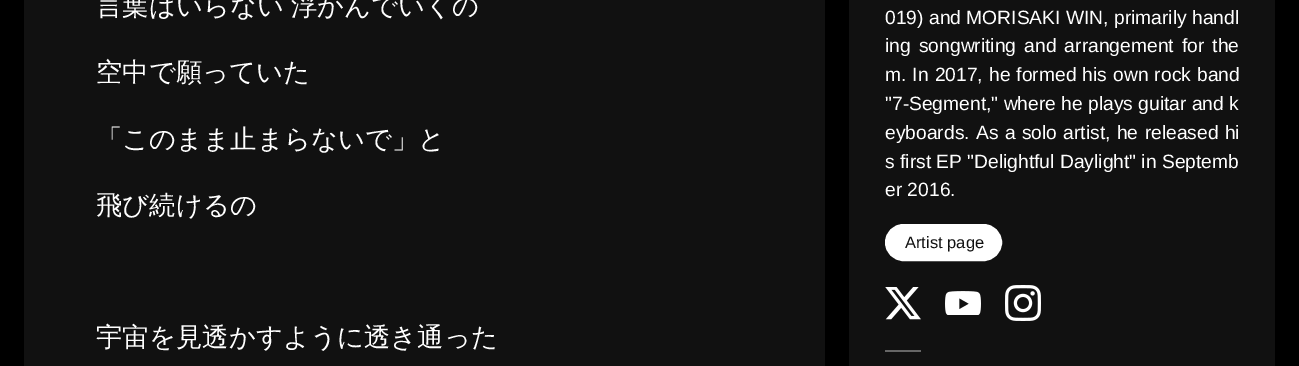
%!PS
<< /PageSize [1299 366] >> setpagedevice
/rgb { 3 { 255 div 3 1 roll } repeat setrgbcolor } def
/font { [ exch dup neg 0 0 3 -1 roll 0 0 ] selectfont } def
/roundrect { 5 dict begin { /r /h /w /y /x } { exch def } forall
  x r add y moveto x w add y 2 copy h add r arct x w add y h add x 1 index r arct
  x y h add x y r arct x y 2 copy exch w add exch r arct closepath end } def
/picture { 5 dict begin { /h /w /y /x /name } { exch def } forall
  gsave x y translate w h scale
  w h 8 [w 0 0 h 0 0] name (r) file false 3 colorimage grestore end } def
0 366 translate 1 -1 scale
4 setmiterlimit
0 0 0 rgb
0 0 1299 366 rectfill
17 17 17 rgb
24 0 801 366 rectfill
849 0 426 366 rectfill
255 255 255 rgb
886 225 115 35 17.5 roundrect gsave fill grestore
2 setlinewidth
stroke
(img/1.rgb) 885 287 36 33 picture
(img/2.rgb) 945 291 36 24 picture
(img/3.rgb) 1005 285 36 36 picture
102 102 102 rgb
885 350 36 2 rectfill
/WenQuanYiZenHei-Medium 26.4 font
255 255 255 rgb
96 15 moveto -1 0 32 (言葉はいらない 浮かんでいくの) widthshow
[
  [(空中で願っていた) 96 81]
  [(「このまま止まらないで」と) 96 148]
  [(飛び続けるの) 96 214]
  [(宇宙を見透かすように透き通った) 96 346]
] { aload pop moveto show } forall
/LiberationSans-Regular 19.25 font
885 24 moveto (019\) and MORISAKI WIN, primarily handl) show
885 52 moveto 2.75 0 32 (ing songwriting and arrangement for the) widthshow
885 81 moveto 0.75 0 32 (m. In 2017, he formed his own rock band) widthshow
885 110 moveto ("7-Segment," where he plays guitar and k) show
885 139 moveto 1 0 32 (eyboards. As a solo artist, he released hi) widthshow
885 168 moveto (s first EP "Delightful Daylight" in Septemb) show
885 196 moveto (er 2016.) show
/LiberationSans-Regular 16.5 font
17 17 17 rgb
905 248 moveto (Artist page) show
showpage
